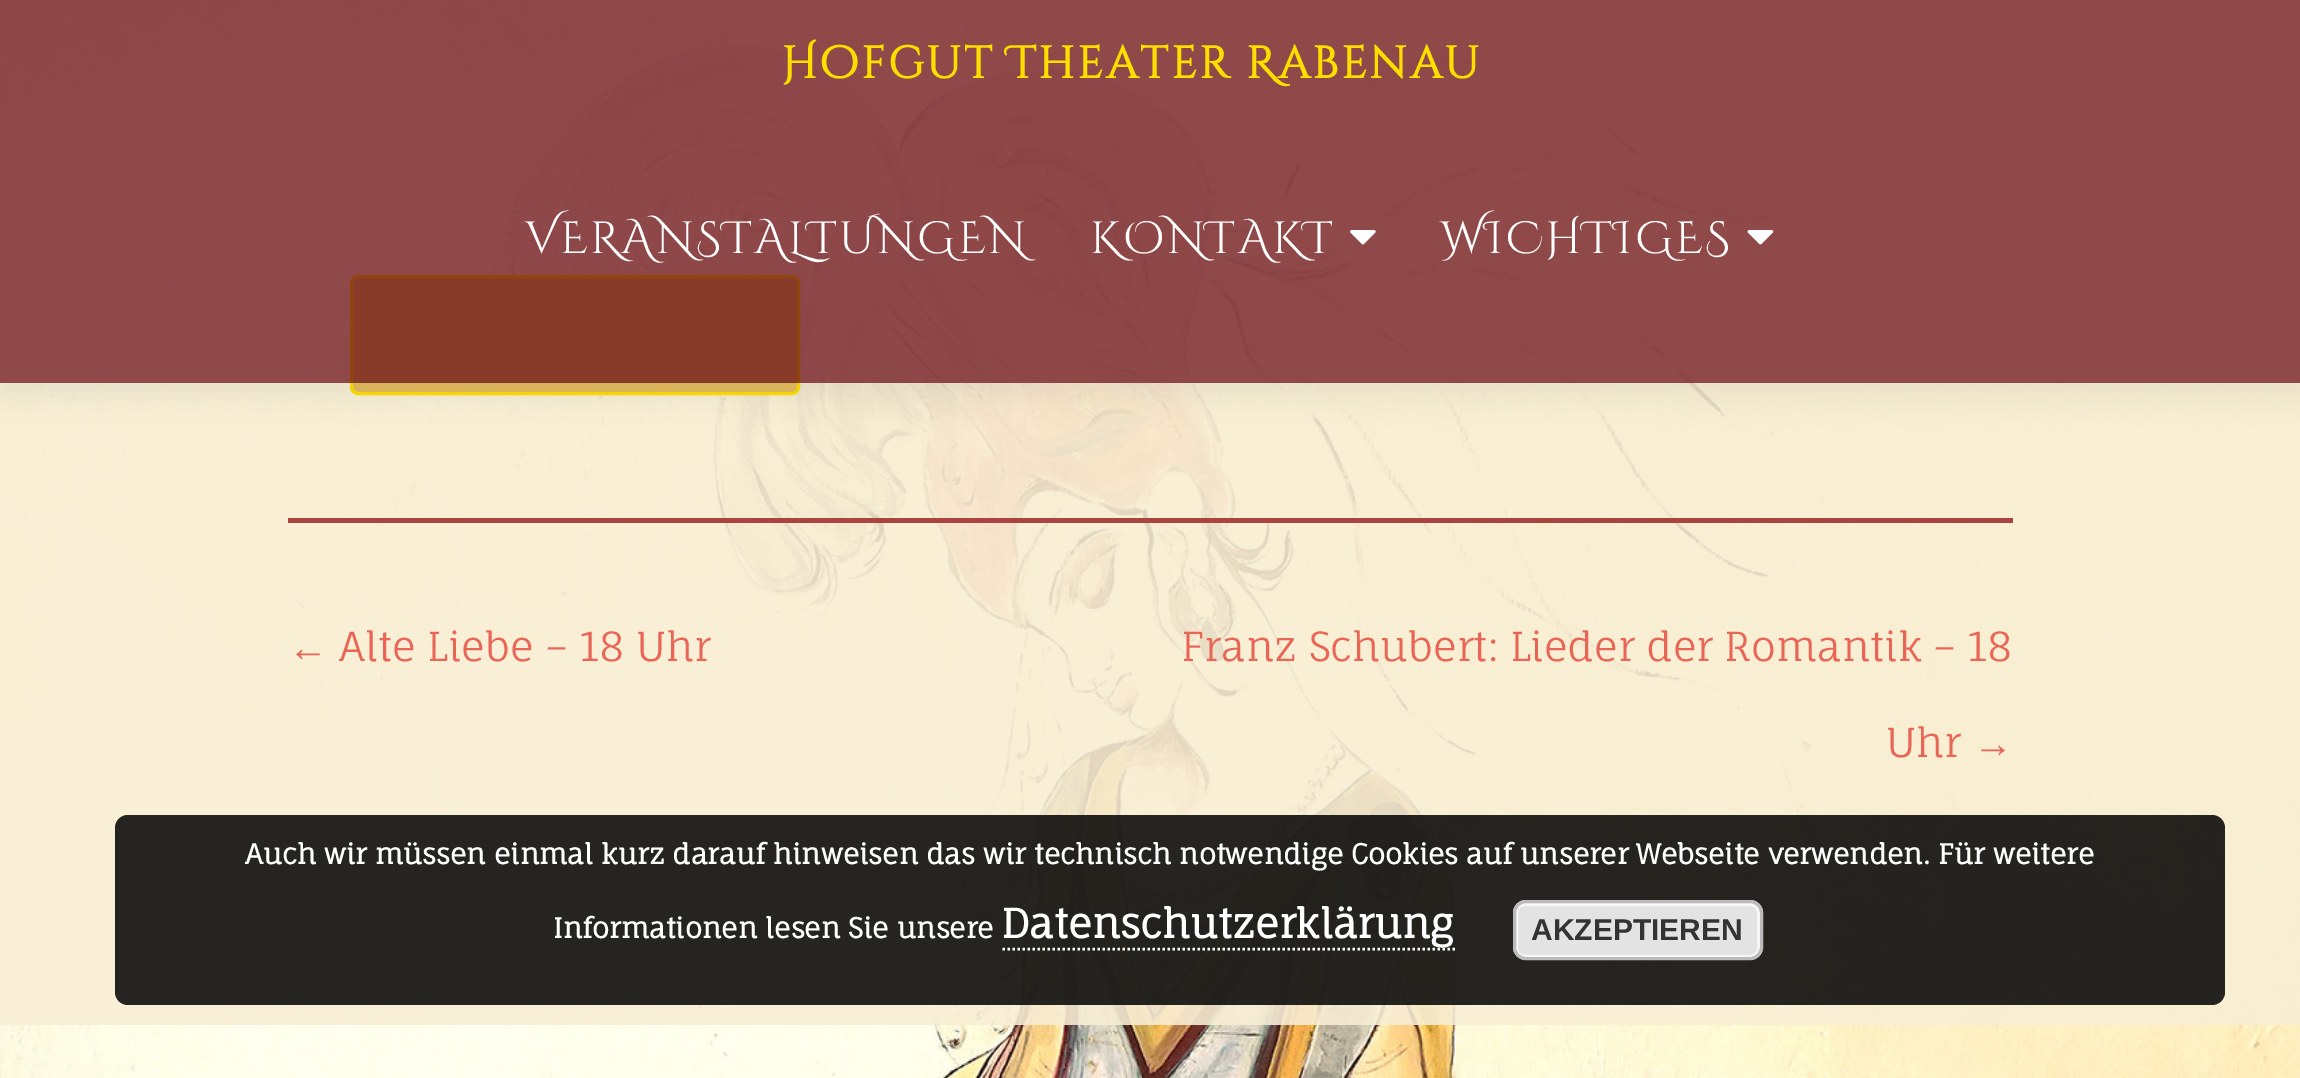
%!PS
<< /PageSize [2300 1078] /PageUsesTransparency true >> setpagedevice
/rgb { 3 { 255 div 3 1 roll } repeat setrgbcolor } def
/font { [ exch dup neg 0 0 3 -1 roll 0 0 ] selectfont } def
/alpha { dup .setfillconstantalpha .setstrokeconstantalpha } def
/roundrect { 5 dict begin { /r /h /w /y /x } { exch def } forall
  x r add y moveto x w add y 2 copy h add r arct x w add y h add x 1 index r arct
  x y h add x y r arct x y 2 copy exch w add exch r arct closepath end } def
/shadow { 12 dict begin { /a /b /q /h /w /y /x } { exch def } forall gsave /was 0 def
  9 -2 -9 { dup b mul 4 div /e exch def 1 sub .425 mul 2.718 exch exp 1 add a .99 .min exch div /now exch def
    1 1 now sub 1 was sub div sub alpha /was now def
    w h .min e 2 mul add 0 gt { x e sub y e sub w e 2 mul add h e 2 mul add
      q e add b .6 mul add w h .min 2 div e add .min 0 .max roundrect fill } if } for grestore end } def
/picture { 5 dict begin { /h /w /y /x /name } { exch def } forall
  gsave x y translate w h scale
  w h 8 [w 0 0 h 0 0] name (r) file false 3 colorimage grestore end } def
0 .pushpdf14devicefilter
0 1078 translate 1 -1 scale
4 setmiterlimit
255 255 255 rgb
0 0 2300 1078 rectfill
(img/1.rgb) 0 0 2300 1078 picture
228 189 95 rgb
351.5 276.5 447 117 6.5 roundrect gsave fill grestore
255 221 0 rgb
3 setlinewidth
stroke
gsave
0 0 moveto 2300 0 lineto 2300 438 lineto 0 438 lineto closepath 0 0 moveto 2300 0 lineto 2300 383 lineto 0 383 lineto closepath eoclip newpath
50 50 50 rgb
0 13 2300 382 0 14 0.08 shadow
grestore
0.72 alpha
102 9 20 rgb
0 0 2300 383 rectfill
1 alpha
(img/2.rgb) 1350 230 26 15 picture
(img/3.rgb) 1747 230 27 15 picture
169 68 65 rgb
288 518 1725 5 rectfill
0.85 alpha
0 0 0 rgb
115 815 2110 190 13 roundrect fill
1 alpha
255 255 255 rgb
2.5 setlinewidth
[2.5 2.5] 0 setdash
1002.5 949 moveto 1455 949 lineto stroke
227 227 227 rgb
1513 900 250 60 13 roundrect fill
246 246 246 rgb
3 setlinewidth
[] 0 setdash
1516.5 904.5 242 52 8.5 roundrect stroke
187 187 187 rgb
1514.5 901.5 247 57 11.5 roundrect stroke
/CinzelDecorative-Bold 45 font
255 221 0 rgb
781 78 moveto 2.5 0 (Hofgut Theater Rabenau) ashow
/CinzelDecorative-Regular 45 font
255 255 255 rgb
525 253 moveto 2.5 0 (VERANSTALTUNGEN) ashow
1090 253 moveto 2.5 0 (KONTAKT) ashow
1440 253 moveto 2.5 0 (WICHTIGES) ashow
/LiberationSerif-Regular 40 font
233 102 86 rgb
288 661 moveto (←) show
/FaunaOne-Regular 40 font
[
  [(Alte Liebe – 18 Uhr) 339 661]
  [(Franz Schubert: Lieder der Romantik – 18) 1181 661]
  [(Uhr) 1886 757]
] { aload pop moveto show } forall
/LiberationSerif-Regular 40 font
1973 757 moveto (→) show
/FaunaOne-Bold 27.5 font
255 255 255 rgb
245 864 moveto (Auch wir müssen einmal kurz darauf hinweisen das wir technisch notwendige Cookies auf unserer Webseite verwenden. Für weitere) show
553 938 moveto (Informationen lesen Sie unsere) show
/FaunaOne-Bold 40 font
1001 938 moveto (Datenschutzerklärung) show
/LiberationSans-Bold 30 font
51 51 51 rgb
1531 940 moveto (AKZEPTIEREN) show
.poppdf14devicefilter showpage
